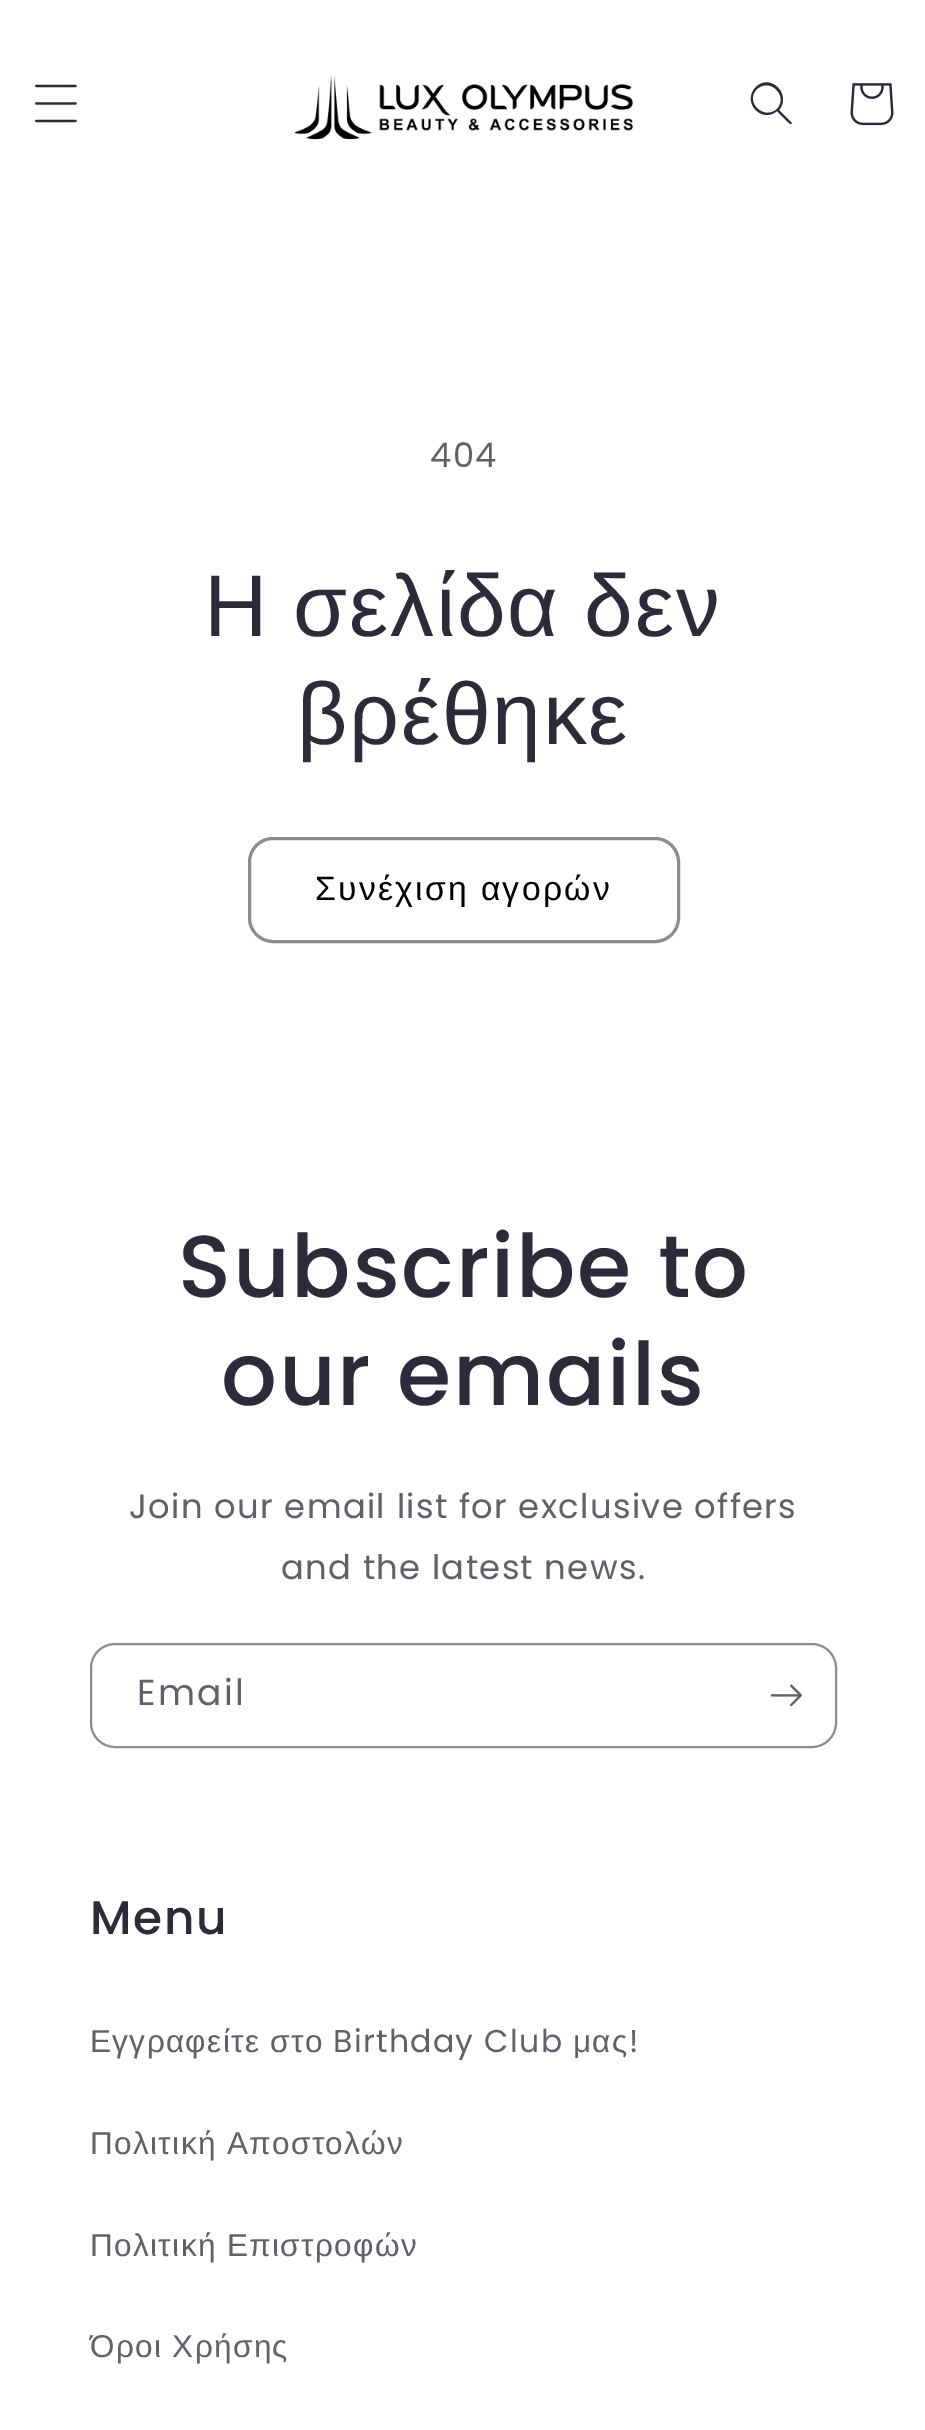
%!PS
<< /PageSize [925 2430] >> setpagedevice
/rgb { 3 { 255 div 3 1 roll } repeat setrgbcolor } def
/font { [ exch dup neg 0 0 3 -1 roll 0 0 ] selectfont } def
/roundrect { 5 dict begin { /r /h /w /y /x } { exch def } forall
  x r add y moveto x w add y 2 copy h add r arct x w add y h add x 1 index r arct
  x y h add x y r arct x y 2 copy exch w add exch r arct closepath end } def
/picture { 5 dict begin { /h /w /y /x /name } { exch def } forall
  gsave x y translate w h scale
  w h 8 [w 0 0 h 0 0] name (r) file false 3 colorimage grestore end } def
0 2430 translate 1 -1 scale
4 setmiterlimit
255 255 255 rgb
0 0 925 2430 rectfill
(img/1.rgb) 35 84 42 39 picture
(img/2.rgb) 294 75 339 65 picture
46 42 57 rgb
777 109 moveto 764 121 744 102 757 89 curveto 770 77 789 96 777 109 curveto closepath 777 111 moveto 762 124 741 102 756 87 curveto 770 73 792 94 779 110 curveto 792 123 lineto 791 124 lineto 790 125 779 113 777 111 curveto closepath eofill
(img/3.rgb) 850 83 44 43 picture
140 140 140 rgb
3 setlinewidth
249.5 838.5 429 103 23.5 roundrect stroke
140 138 146 rgb
2 setlinewidth
91 1644 745 103 24 roundrect stroke
(img/4.rgb) 770 1684 32 23 picture
/Poppins-Regular 33.75 font
98 95 107 rgb
430 467 moveto 1.35 0 (404) ashow
/LiberationSans-Regular 87.75 font
46 42 57 rgb
204 636 moveto -2 0 32 1.75 0 (Η σελίδα δεν) awidthshow
297 744 moveto 1.75 0 (βρέθηκε) ashow
/LiberationSans-Regular 33.75 font
0 0 0 rgb
315 900 moveto 2.25 0 (Συνέχιση αγορών) ashow
/Poppins-Medium 87.75 font
46 42 57 rgb
178 1297 moveto 1.75 0 (Subscribe to) ashow
221 1405 moveto 1.75 0 (our emails) ashow
/Poppins-Regular 33.75 font
98 95 107 rgb
129 1518 moveto 1.35 0 (Join our email list for exclusive offers) ashow
281 1579 moveto 1.35 0 (and the latest news.) ashow
/Poppins-Regular 36 font
137 1705 moveto 2.25 0 (Email) ashow
/Poppins-Medium 47 font
46 42 57 rgb
90 1934 moveto 1.75 0 (Menu) ashow
/LiberationSans-Regular 31.5 font
98 95 107 rgb
90 2052 moveto 1.35 0 (Εγγραφείτε) ashow
270 2052 moveto 1.35 0 (στο) ashow
/Poppins-Regular 31.5 font
333 2052 moveto 1.35 0 (Birthday Club) ashow
/LiberationSans-Regular 31.5 font
573 2052 moveto 1.35 0 (μας) ashow
/Poppins-Regular 31.5 font
629 2052 moveto 1.35 0 (!) ashow
/LiberationSans-Regular 31.5 font
90 2154 moveto 1.35 0 (Πολιτική Αποστολών) ashow
90 2256 moveto 1.35 0 (Πολιτική Επιστροφών) ashow
90 2357 moveto 1.35 0 (Όροι Χρήσης) ashow
showpage
